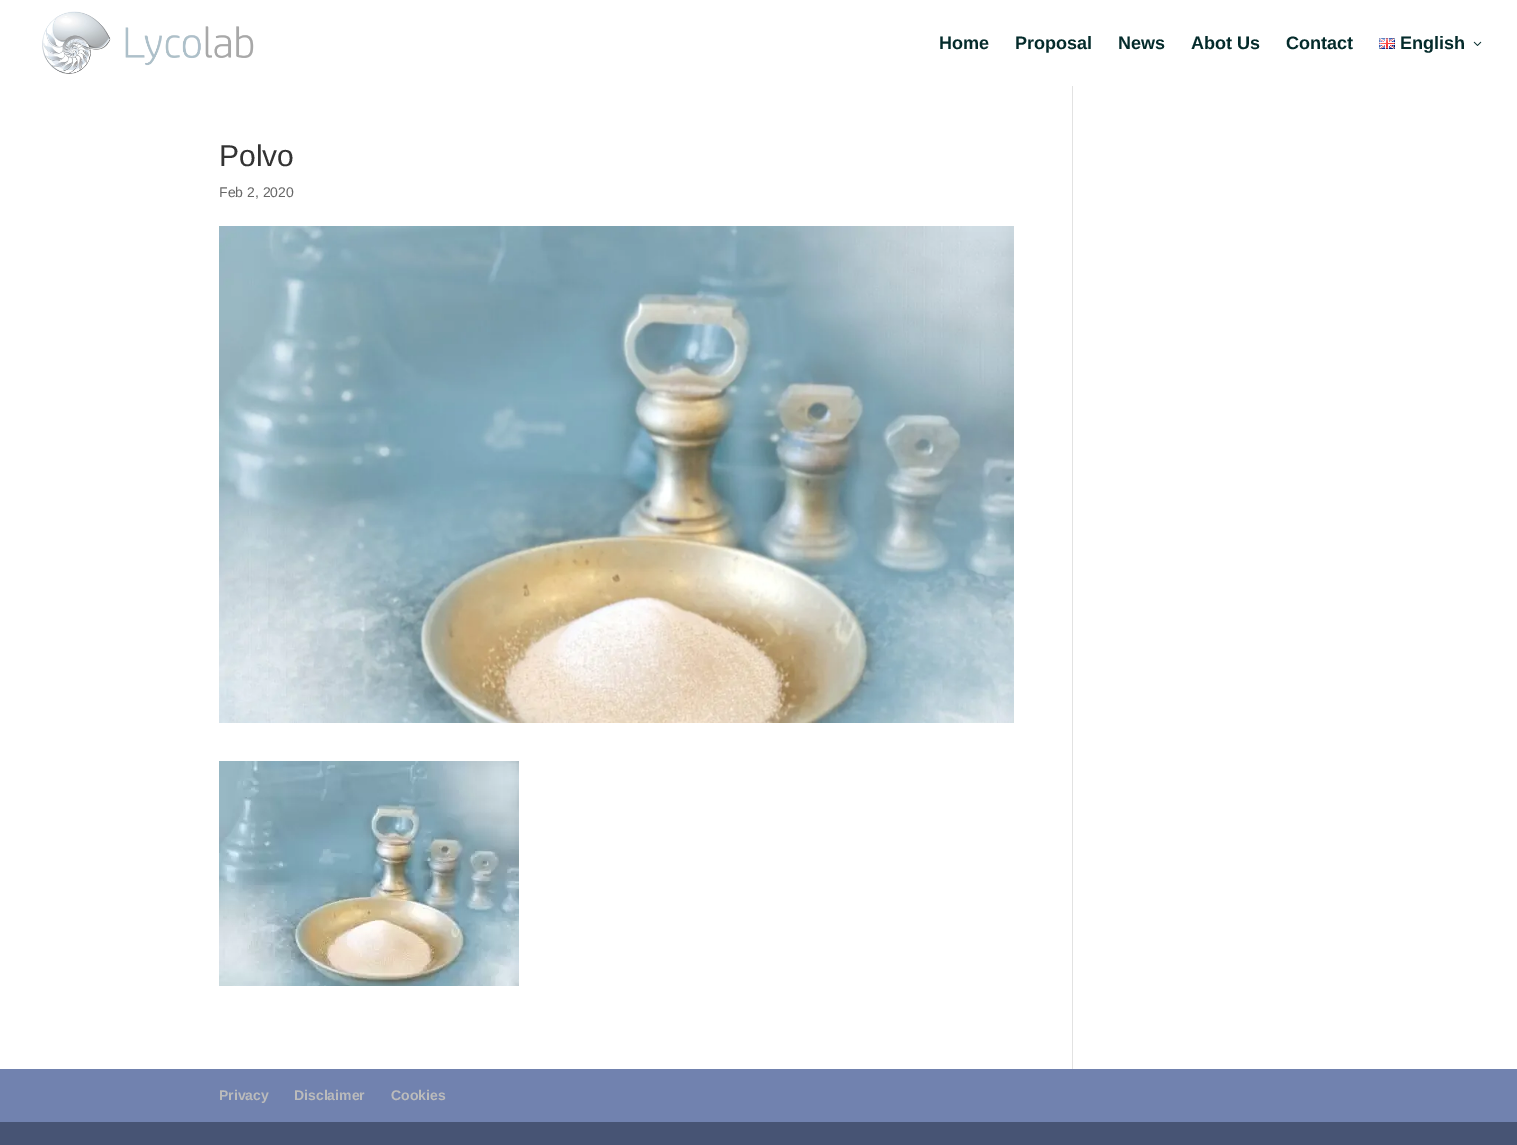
%!PS
<< /PageSize [1517 1145] >> setpagedevice
/rgb { 3 { 255 div 3 1 roll } repeat setrgbcolor } def
/font { [ exch dup neg 0 0 3 -1 roll 0 0 ] selectfont } def
/picture { 5 dict begin { /h /w /y /x /name } { exch def } forall
  gsave x y translate w h scale
  w h 8 [w 0 0 h 0 0] name (r) file false 3 colorimage grestore end } def
0 1145 translate 1 -1 scale
4 setmiterlimit
255 255 255 rgb
0 0 1517 1145 rectfill
(img/1.rgb) 42 11 212 63 picture
(img/2.rgb) 1379 38 16 11 picture
(img/3.rgb) 1473 41 9 5 picture
(img/4.rgb) 219 226 795 497 picture
(img/5.rgb) 219 761 300 225 picture
[
  [1072 86 1 983 226 226 226]
  [0 1069 1517 53 113 130 175]
  [0 1122 1517 23 71 84 116]
] { aload pop rgb rectfill } forall
/LiberationSans-Bold 18 font
4 43 43 rgb
[
  [(Home) 939 49]
  [(Proposal) 1015 49]
  [(News) 1118 49]
  [(Abot Us) 1191 49]
  [(Contact) 1286 49]
  [(English) 1400 49]
] { aload pop moveto show } forall
/LiberationSans-Regular 30 font
51 51 51 rgb
219 166 moveto (Polvo) show
/LiberationSans-Regular 14 font
102 102 102 rgb
219 197 moveto (Feb 2, 2020) show
/LiberationSans-Bold 14 font
187 187 187 rgb
[
  [(Privacy) 219 1100]
  [(Disclaimer) 294 1100]
  [(Cookies) 391 1100]
] { aload pop moveto show } forall
showpage
